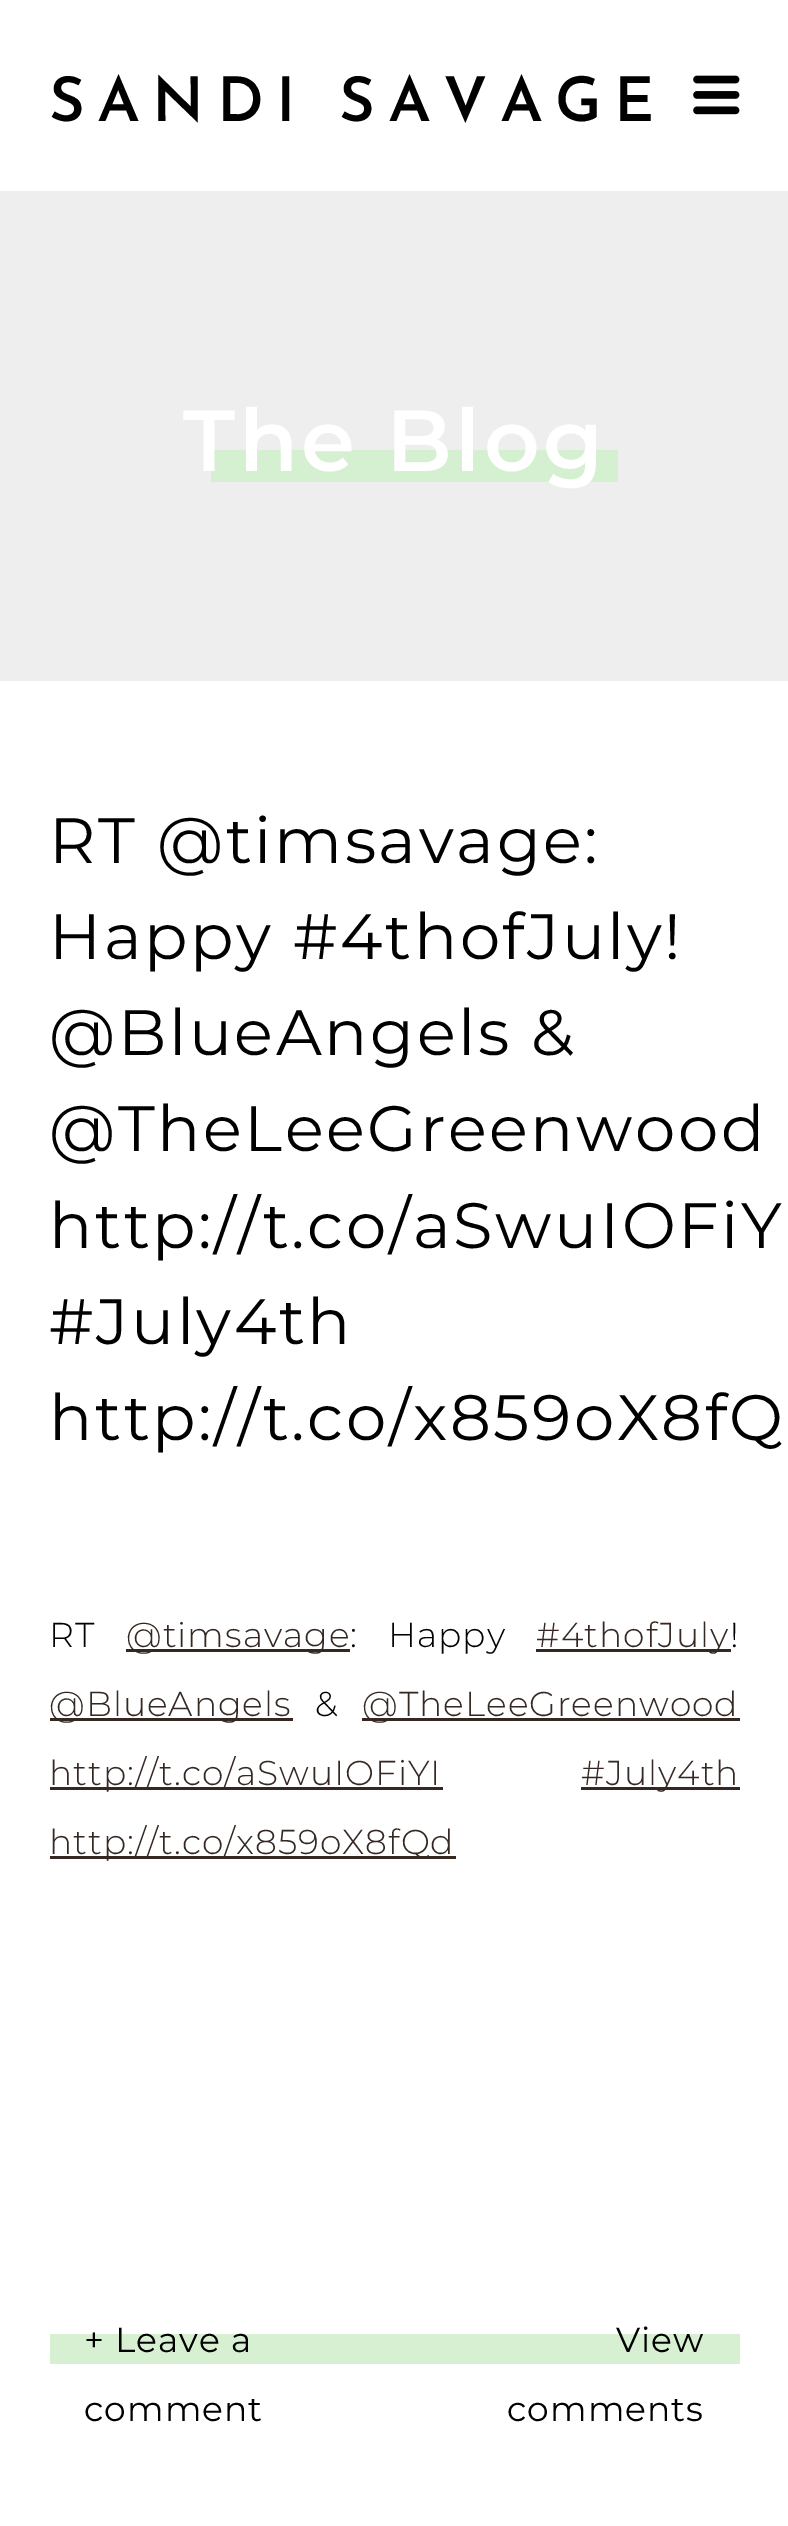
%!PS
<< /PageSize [788 2526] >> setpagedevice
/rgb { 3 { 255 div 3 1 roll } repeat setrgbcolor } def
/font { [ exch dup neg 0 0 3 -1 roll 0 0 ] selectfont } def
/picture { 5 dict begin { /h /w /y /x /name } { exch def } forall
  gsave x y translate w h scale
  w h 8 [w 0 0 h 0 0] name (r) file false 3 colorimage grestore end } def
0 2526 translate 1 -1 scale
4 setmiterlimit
255 255 255 rgb
0 0 788 2526 rectfill
(img/1.rgb) 693 75 47 40 picture
[
  [0 191 788 490 238 238 238]
  [211 450 407 32 213 240 208]
  [126 1649 224 3 53 40 34]
  [536 1649 195 3 53 40 34]
  [50 1718 243 3 53 40 34]
  [362 1718 378 3 53 40 34]
  [50 1787 393 3 53 40 34]
  [581 1787 159 3 53 40 34]
  [50 1856 406 3 53 40 34]
  [50 2334 690 30 214 240 209]
] { aload pop rgb rectfill } forall
/JosefinSans-SemiBold 61.6 font
0 0 0 rgb
49 121 moveto 12.25 0 (SANDI SAVAGE) ashow
/Montserrat-SemiBold 86.5 font
255 255 255 rgb
183 471 moveto 3.5 0 (The Blog) ashow
/Montserrat-Regular 64.1 font
0 0 0 rgb
49 863 moveto 2.6 0 (RT @timsavage:) ashow
49 959 moveto 2.6 0 (Happy #4thofJuly!) ashow
49 1055 moveto 2.6 0 (@BlueAngels &) ashow
49 1151 moveto 2.6 0 (@TheLeeGreenwood) ashow
49 1248 moveto 2.6 0 (http://t.co/aSwuIOFiY) ashow
49 1344 moveto 2.6 0 (#July4th) ashow
49 1440 moveto 2.6 0 (http://t.co/x859oX8fQ) ashow
/Montserrat-Light 34.5 font
49 1647 moveto 1 0 (RT) ashow
53 40 34 rgb
126 1647 moveto 1 0 (@timsavage) ashow
0 0 0 rgb
350 1647 moveto 20 0 32 1 0 (: Happy) awidthshow
53 40 34 rgb
536 1647 moveto 1 0 (#4thofJuly) ashow
0 0 0 rgb
730 1647 moveto 1 0 (!) ashow
53 40 34 rgb
49 1716 moveto 1 0 (@BlueAngels) ashow
0 0 0 rgb
315 1716 moveto 1 0 (&) ashow
53 40 34 rgb
362 1716 moveto 1 0 (@TheLeeGreenwood) ashow
49 1785 moveto 1 0 (http://t.co/aSwuIOFiYI) ashow
581 1785 moveto 1 0 (#July4th) ashow
49 1854 moveto 1 0 (http://t.co/x859oX8fQd) ashow
/Montserrat-Regular 34.5 font
0 0 0 rgb
84 2352 moveto 1 0 (+ Leave a) ashow
84 2421 moveto 1 0 (comment) ashow
616 2352 moveto 1 0 (View) ashow
507 2421 moveto 1 0 (comments) ashow
showpage
